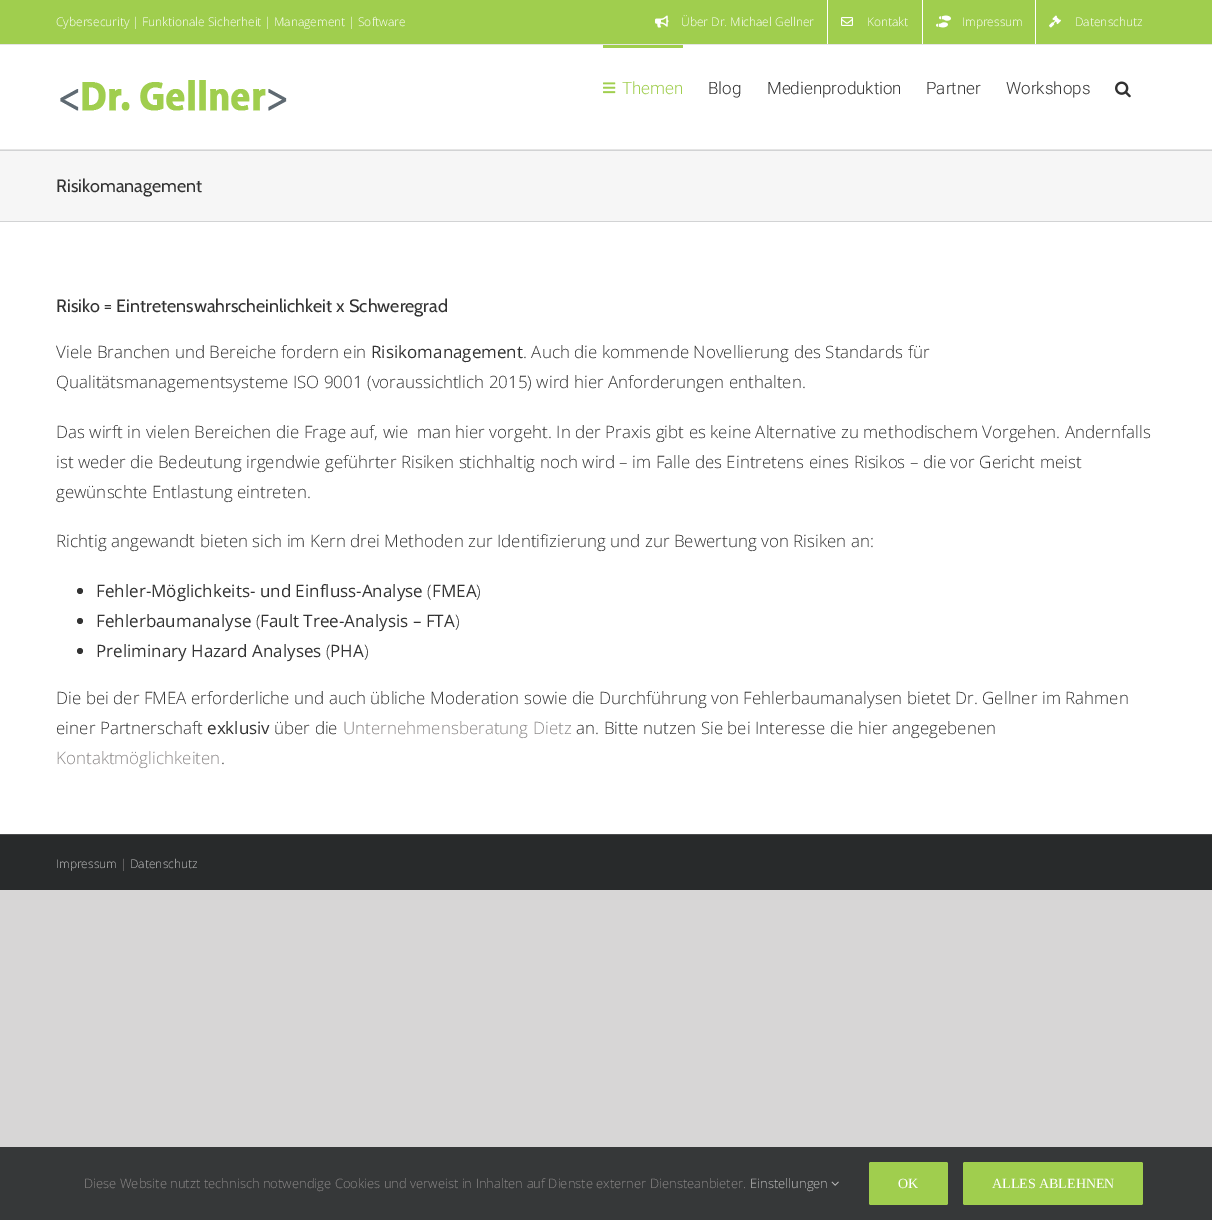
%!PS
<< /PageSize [1212 1220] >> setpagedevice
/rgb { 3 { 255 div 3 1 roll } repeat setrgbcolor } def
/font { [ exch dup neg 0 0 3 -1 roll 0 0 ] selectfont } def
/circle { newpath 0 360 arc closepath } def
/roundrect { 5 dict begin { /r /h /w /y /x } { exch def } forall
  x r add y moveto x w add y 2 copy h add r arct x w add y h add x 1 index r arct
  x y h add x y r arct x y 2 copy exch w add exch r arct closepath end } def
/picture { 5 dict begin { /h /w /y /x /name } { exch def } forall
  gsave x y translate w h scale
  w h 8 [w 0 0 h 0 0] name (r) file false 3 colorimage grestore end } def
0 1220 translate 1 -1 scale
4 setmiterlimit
215 214 214 rgb
0 0 1212 1220 rectfill
[
  [0 45 1212 789 255 255 255]
  [0 0 1212 44 160 206 78]
  [0 44 1212 1 229 229 229]
] { aload pop rgb rectfill } forall
(img/1.rgb) 655 15 14 13 picture
255 255 255 rgb
827 0 1 44 rectfill
(img/2.rgb) 841 17 12 9 picture
922 0 1 44 rectfill
(img/3.rgb) 936 15 15 13 picture
1035 0 1 44 rectfill
(img/4.rgb) 1049 15 12 13 picture
229 229 229 rgb
0 149 1212 1 rectfill
(img/5.rgb) 60 80 227 31 picture
160 206 78 rgb
603 45 80 3 rectfill
(img/6.rgb) 603 82 13 12 picture
(img/7.rgb) 1115 81 16 17 picture
[
  [0 151 1212 70 246 246 246]
  [0 150 1212 1 210 211 212]
  [0 221 1212 1 210 211 212]
] { aload pop rgb rectfill } forall
51 51 51 rgb
80 591 3 circle fill
80 621 3 circle fill
80 651 3 circle fill
[
  [0 835 1212 55 40 42 43]
  [0 834 1212 1 75 76 77]
  [0 1147 1212 73 54 56 57]
] { aload pop rgb rectfill } forall
(img/8.rgb) 831 1181 8 5 picture
160 206 78 rgb
869 1162 79 43 2 roundrect fill
963 1162 180 43 2 roundrect fill
/OpenSans-Light 12 font
255 255 255 rgb
[
  [(Cybersecurity | Funktionale Sicherheit | Management | Software) 56 26]
  [(Über Dr. Michael Gellner) 681 26]
  [(Kontakt) 867 26]
  [(Impressum) 962 26]
  [(Datenschutz) 1075 26]
] { aload pop moveto show } forall
/Roboto-Light 17 font
160 206 78 rgb
622 94 moveto (Themen) show
51 51 51 rgb
[
  [(Blog) 708 94]
  [(Medienproduktion) 767 94]
  [(Partner) 926 94]
  [(Workshops) 1006 94]
] { aload pop moveto show } forall
/Cabin-Regular 18 font
56 192 moveto (Risikomanagement) show
56 312 moveto (Risiko = Eintretenswahrscheinlichkeit x Schweregrad) show
/OpenSans-Light 17 font
56 358 moveto (Viele Branchen und Bereiche fordern ein) show
/OpenSans-Regular 17 font
371 358 moveto (Risikomanagement) show
/OpenSans-Light 17 font
[
  [(. Auch die kommende Novellierung des Standards für) 523 358]
  [(Qualitätsmanagementsysteme ISO 9001 \(voraussichtlich 2015\) wird hier Anforderungen enthalten.) 56 388]
  [(Das wirft in vielen Bereichen die Frage auf, wie  man hier vorgeht. In der Praxis gibt es keine Alternative zu methodischem Vorgehen. Andernfalls) 56 438]
  [(ist weder die Bedeutung irgendwie geführter Risiken stichhaltig noch wird – im Falle des Eintretens eines Risikos – die vor Gericht meist) 56 468]
  [(gewünschte Entlastung eintreten.) 56 498]
  [(Richtig angewandt bieten sich im Kern drei Methoden zur Identifizierung und zur Bewertung von Risiken an:) 56 547]
] { aload pop moveto show } forall
/OpenSans-Regular 17 font
96 597 moveto (Fehler-Möglichkeits- und Einfluss-Analyse) show
/OpenSans-Light 17 font
427 597 moveto (\() show
/OpenSans-Regular 17 font
432 597 moveto (FMEA) show
/OpenSans-Light 17 font
476 597 moveto (\)) show
/OpenSans-Regular 17 font
96 627 moveto (Fehlerbaumanalyse) show
/OpenSans-Light 17 font
256 627 moveto (\() show
/OpenSans-Regular 17 font
260 627 moveto (Fault Tree-Analysis – FTA) show
/OpenSans-Light 17 font
455 627 moveto (\)) show
/OpenSans-Regular 17 font
96 657 moveto (Preliminary Hazard Analyses) show
/OpenSans-Light 17 font
326 657 moveto (\() show
/OpenSans-Regular 17 font
330 657 moveto (PHA) show
/OpenSans-Light 17 font
[
  [(\)) 364 657]
  [(Die bei der FMEA erforderliche und auch übliche Moderation sowie die Durchführung von Fehlerbaumanalysen bietet Dr. Gellner im Rahmen) 56 704]
  [(einer Partnerschaft) 56 734]
] { aload pop moveto show } forall
/OpenSans-Regular 17 font
207 734 moveto (exklusiv) show
/OpenSans-Light 17 font
274 734 moveto (über die) show
140 137 137 rgb
343 734 moveto (Unternehmensberatung Dietz) show
51 51 51 rgb
576 734 moveto (an. Bitte nutzen Sie bei Interesse die hier angegebenen) show
140 137 137 rgb
56 764 moveto (Kontaktmöglichkeiten) show
51 51 51 rgb
221 764 moveto (.) show
/OpenSans-Light 12 font
191 191 191 rgb
56 868 moveto (Impressum) show
140 137 137 rgb
120 868 moveto (|) show
191 191 191 rgb
130 868 moveto (Datenschutz) show
/OpenSans-Light 13 font
140 137 137 rgb
84 1188 moveto (Diese Website nutzt technisch notwendige Cookies und verweist in Inhalten auf Dienste externer Diensteanbieter.) show
191 191 191 rgb
750 1188 moveto (Einstellungen) show
/LiberationSerif-Regular 14 font
255 255 255 rgb
898 1188 moveto (OK) show
992 1188 moveto (ALLES ABLEHNEN) show
showpage
